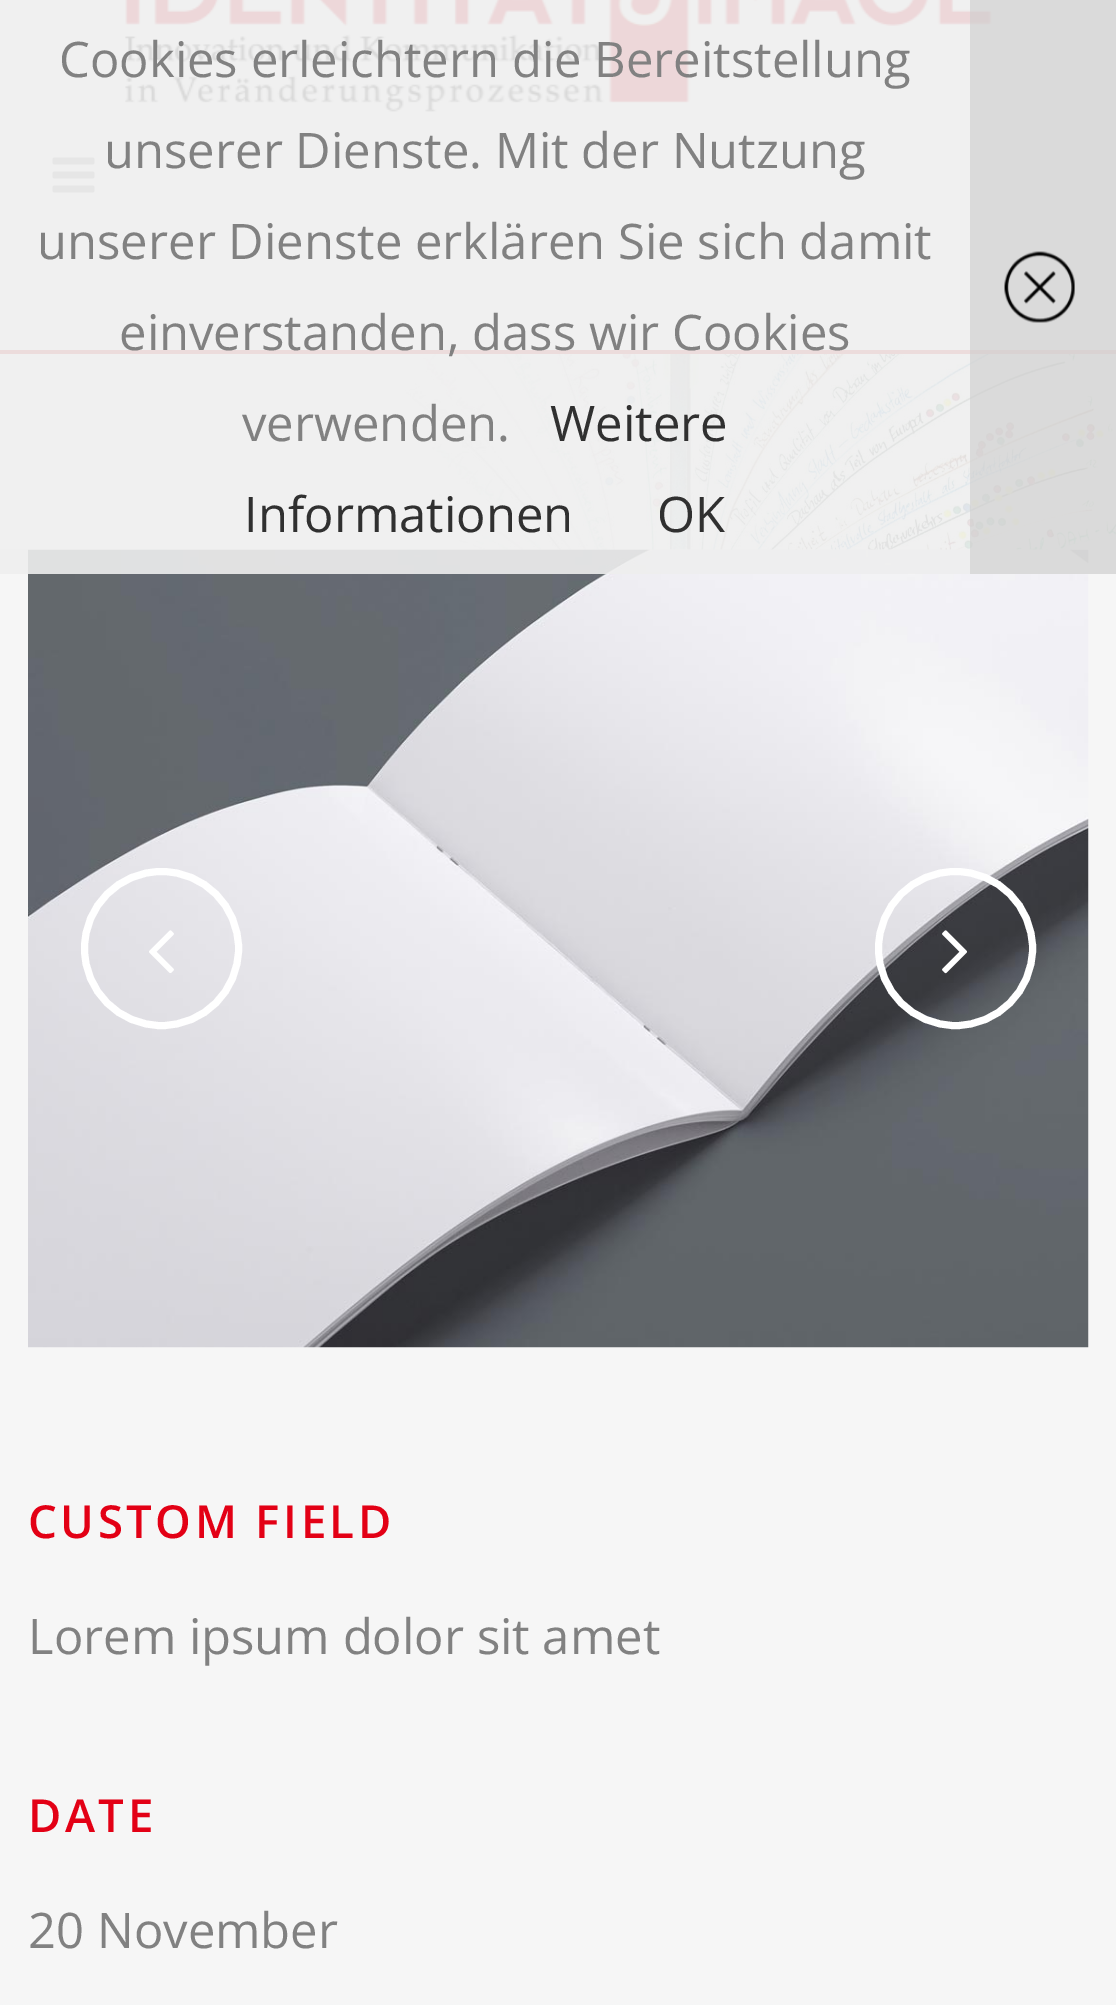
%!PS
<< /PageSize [1116 2005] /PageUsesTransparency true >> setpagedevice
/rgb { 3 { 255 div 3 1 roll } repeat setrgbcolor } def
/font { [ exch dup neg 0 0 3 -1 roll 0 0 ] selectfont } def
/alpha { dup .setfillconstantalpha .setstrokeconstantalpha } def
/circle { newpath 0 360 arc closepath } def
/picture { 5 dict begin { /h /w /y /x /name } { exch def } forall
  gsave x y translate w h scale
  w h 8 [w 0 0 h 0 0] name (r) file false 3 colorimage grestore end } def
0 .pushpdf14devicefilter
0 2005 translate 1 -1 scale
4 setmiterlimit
246 246 246 rgb
0 0 1116 2005 rectfill
255 255 255 rgb
0 0 1116 350 rectfill
221 51 51 rgb
0 350 1116 4 rectfill
(img/2.rgb) 125 0 867 112 picture
(img/3.rgb) 52 157 43 36 picture
(img/4.rgb) 0 354 1116 196 picture
(img/5.rgb) 28 549 1061 799 picture
0.9 alpha
238 238 238 rgb
0 0 1116 574 rectfill
0.6 alpha
204 204 204 rgb
970 0 146 574 rectfill
1 alpha
(img/1.rgb) 1004 251 71 72 picture
255 255 255 rgb
7 setlinewidth
161.5 948.5 77 circle stroke
(img/6.rgb) 149 930 25 43 picture
955.5 948.5 77 circle stroke
(img/7.rgb) 942 930 25 44 picture
/OpenSans-Regular 49 font
129 129 129 rgb
[
  [(Cookies erleichtern die Bereitstellung) 59 77]
  [(unserer Dienste. Mit der Nutzung) 104 168]
  [(unserer Dienste erklären Sie sich damit) 37 259]
  [(einverstanden, dass wir Cookies) 119 350]
  [(verwenden.) 242 441]
] { aload pop moveto show } forall
48 48 48 rgb
[
  [(Weitere) 550 441]
  [(Informationen) 244 532]
  [(OK) 657 532]
] { aload pop moveto show } forall
/OpenSans-SemiBold 45.5 font
227 0 21 rgb
28 1538 moveto 3.5 0 (CUSTOM FIELD) ashow
/OpenSans-Regular 49 font
129 129 129 rgb
28 1654 moveto (Lorem ipsum dolor sit amet) show
/OpenSans-SemiBold 45.5 font
227 0 21 rgb
28 1832 moveto 3.5 0 (DATE) ashow
/OpenSans-Regular 49 font
129 129 129 rgb
28 1948 moveto (20 November) show
.poppdf14devicefilter showpage
